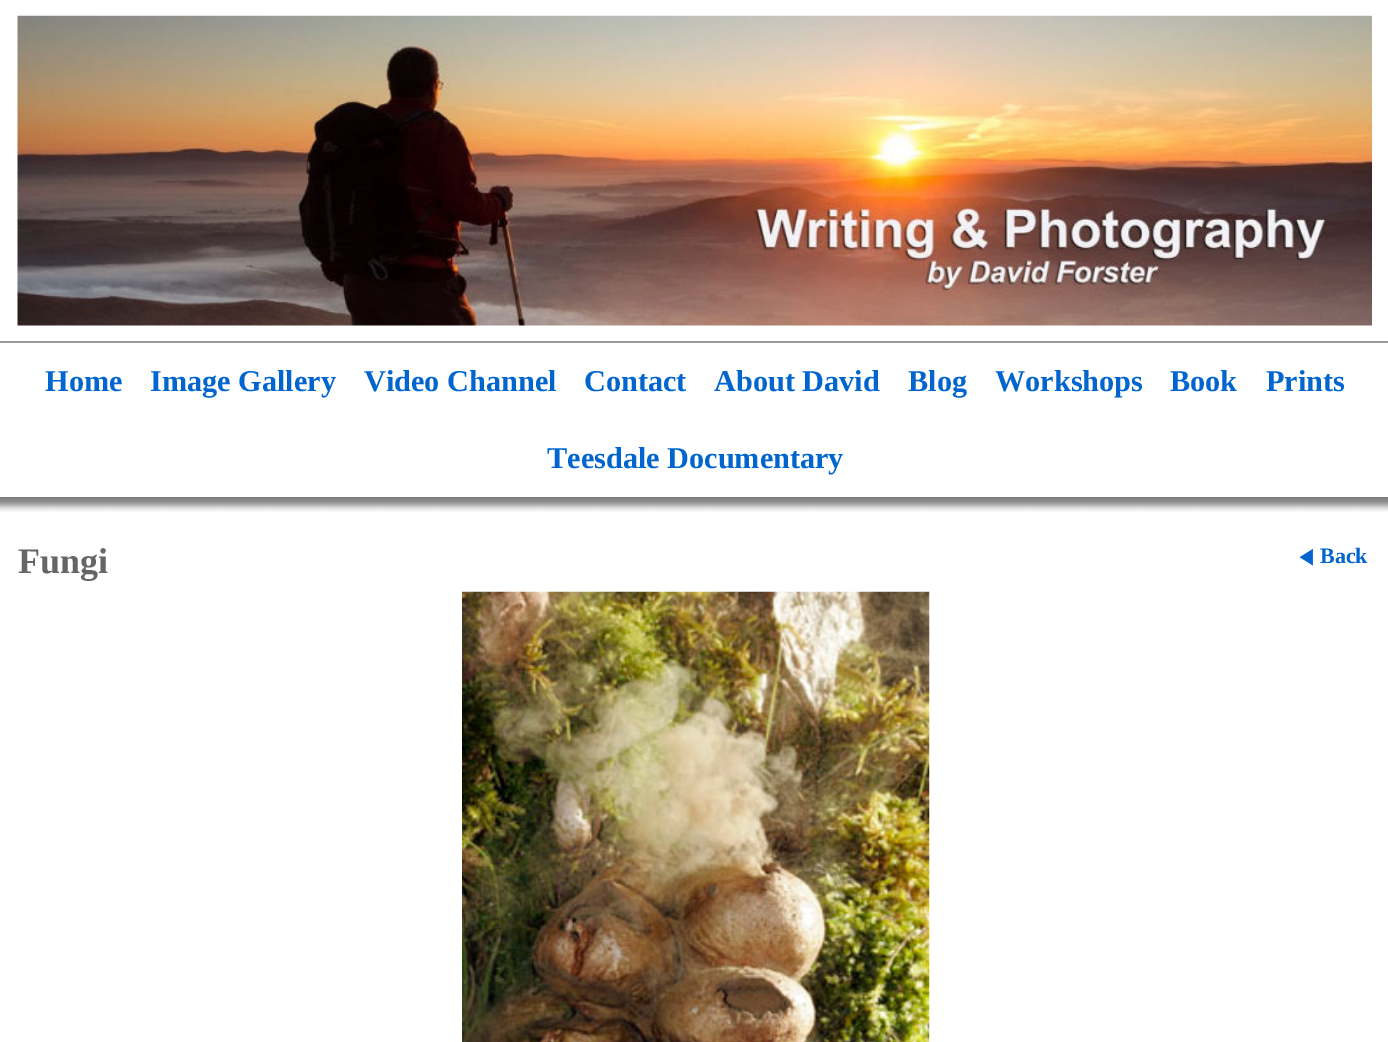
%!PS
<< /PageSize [1388 1042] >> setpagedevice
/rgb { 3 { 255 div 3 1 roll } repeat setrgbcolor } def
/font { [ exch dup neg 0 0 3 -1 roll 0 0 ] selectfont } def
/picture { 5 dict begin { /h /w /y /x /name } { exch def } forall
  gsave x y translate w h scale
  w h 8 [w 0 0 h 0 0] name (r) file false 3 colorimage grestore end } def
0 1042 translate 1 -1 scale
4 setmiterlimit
255 255 255 rgb
0 0 1388 1042 rectfill
154 154 154 rgb
0 341 1388 2 rectfill
(img/1.rgb) 17 15 1355 311 picture
(img/2.rgb) 0 497 1388 15 picture
(img/3.rgb) 1299 548 14 18 picture
(img/4.rgb) 462 591 468 451 picture
/LiberationSerif-Bold 30.25 font
0 101 207 rgb
[
  [(Home) 45 391]
  [(Image Gallery) 150 391]
  [(Video Channel) 364 391]
  [(Contact) 584 391]
  [(About David) 714 391]
  [(Blog) 908 391]
  [(Workshops) 995 391]
  [(Book) 1170 391]
  [(Prints) 1266 391]
  [(Teesdale Documentary) 547 468]
] { aload pop moveto show } forall
/LiberationSerif-Bold 36 font
102 102 102 rgb
18 573 moveto (Fungi) show
/LiberationSerif-Bold 22 font
0 101 207 rgb
1320 563 moveto (Back) show
showpage
